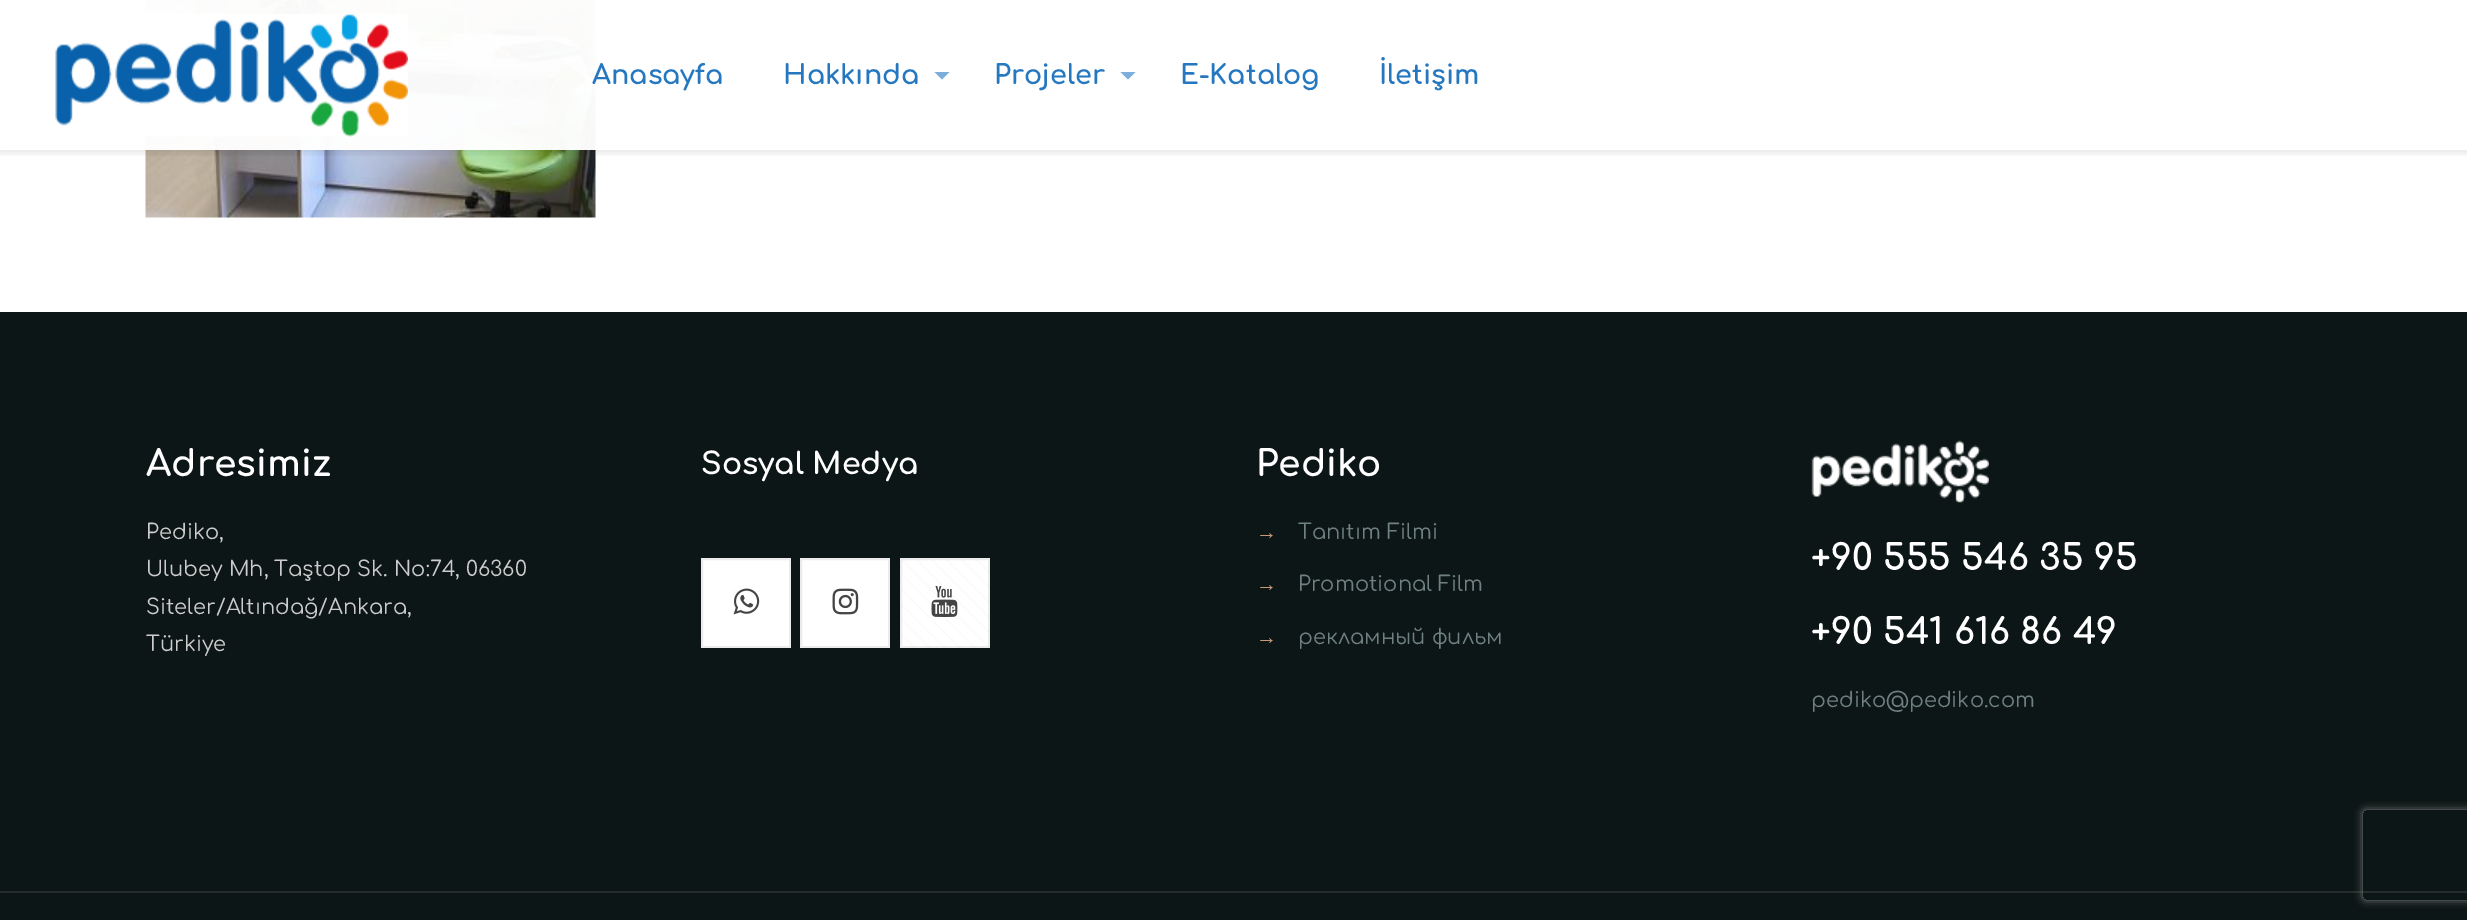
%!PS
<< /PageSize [2467 920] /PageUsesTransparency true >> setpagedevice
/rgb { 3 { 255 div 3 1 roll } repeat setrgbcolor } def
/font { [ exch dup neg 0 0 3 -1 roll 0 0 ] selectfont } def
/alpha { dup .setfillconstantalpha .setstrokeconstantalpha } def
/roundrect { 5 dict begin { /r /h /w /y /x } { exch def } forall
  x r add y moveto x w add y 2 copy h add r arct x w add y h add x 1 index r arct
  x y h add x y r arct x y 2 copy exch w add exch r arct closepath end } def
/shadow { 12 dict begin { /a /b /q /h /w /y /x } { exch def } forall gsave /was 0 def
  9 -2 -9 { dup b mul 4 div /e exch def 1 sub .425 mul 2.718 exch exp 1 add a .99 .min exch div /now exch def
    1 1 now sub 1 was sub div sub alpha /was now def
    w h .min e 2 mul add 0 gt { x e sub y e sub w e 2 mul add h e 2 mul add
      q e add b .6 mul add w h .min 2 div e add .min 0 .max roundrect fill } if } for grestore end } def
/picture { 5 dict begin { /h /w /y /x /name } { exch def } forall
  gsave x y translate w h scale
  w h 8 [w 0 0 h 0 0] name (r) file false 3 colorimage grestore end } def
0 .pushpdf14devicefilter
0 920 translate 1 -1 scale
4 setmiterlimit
255 255 255 rgb
0 0 2467 920 rectfill
(img/1.rgb) 145 0 451 218 picture
gsave
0 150 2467 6 rectclip
0 0 0 rgb
0 3 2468 150 0 4 0.1 shadow
grestore
0.97 alpha
145 0 451 150 rectfill
1 alpha
(img/2.rgb) 55 14 353 123 picture
124 174 217 rgb
934.5 72 moveto 949.5 72 lineto 942 79.5 lineto closepath fill
1120.5 72 moveto 1135.5 72 lineto 1128 79.5 lineto closepath fill
13 22 22 rgb
0 312 2467 608 rectfill
255 255 255 rgb
701 558 90 90 rectfill
0.08 alpha
0 0 0 rgb
2 setlinewidth
702 559 88 88 rectstroke
1 alpha
(img/3.rgb) 733 588 27 27 picture
255 255 255 rgb
800 558 90 90 rectfill
0.08 alpha
0 0 0 rgb
801 559 88 88 rectstroke
1 alpha
(img/4.rgb) 832 588 27 27 picture
255 255 255 rgb
900 558 90 90 rectfill
(img/5.rgb) 902 560 88 88 picture
0.08 alpha
0 0 0 rgb
901 559 88 88 rectstroke
1 alpha
(img/6.rgb) 931 586 27 31 picture
(img/7.rgb) 1811 440 178 63 picture
37 45 45 rgb
0 891 2467 2 rectfill
gsave
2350 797 moveto 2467 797 lineto 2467 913 lineto 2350 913 lineto closepath 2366 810 moveto 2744 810 lineto 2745.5 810 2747 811.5 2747 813 curveto 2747 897 lineto 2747 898.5 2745.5 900 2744 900 curveto 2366 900 lineto 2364.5 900 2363 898.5 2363 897 curveto 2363 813 lineto 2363 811.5 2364.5 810 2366 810 curveto closepath eoclip newpath
128 128 128 rgb
2363 810 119 90 3 4 1 shadow
grestore
/Comfortaa-Bold 27 font
37 119 192 rgb
[
  [(Anasayfa) 592 84]
  [(Hakkında) 783 84]
  [(Projeler) 994 84]
  [(E-Katalog) 1180 84]
  [(İletişim) 1379 84]
] { aload pop moveto show } forall
/Comfortaa-Bold 36 font
255 255 255 rgb
146 476 moveto (Adresimiz) show
/Comfortaa-Regular 21 font
204 204 204 rgb
[
  [(Pediko,) 146 539]
  [(Ulubey Mh, Taştop Sk. No:74, 06360) 146 576]
  [(Siteler/Altındağ/Ankara,) 146 614]
  [(Türkiye) 146 651]
] { aload pop moveto show } forall
/Comfortaa-Bold 30 font
255 255 255 rgb
701 474 moveto (Sosyal Medya) show
/Comfortaa-Bold 36 font
1256 476 moveto (Pediko) show
/LiberationSans-Regular 21 font
199 155 122 rgb
1256 539 moveto (→) show
/Comfortaa-Regular 21 font
111 128 128 rgb
1298 539 moveto (Tanıtım Filmi) show
/LiberationSans-Regular 21 font
199 155 122 rgb
1256 591 moveto (→) show
/Comfortaa-Regular 21 font
111 128 128 rgb
1298 591 moveto (Promotional Film) show
/LiberationSans-Regular 21 font
199 155 122 rgb
1256 644 moveto (→) show
/Comfortaa-Regular 21 font
111 128 128 rgb
1298 644 moveto (рекламный фильм) show
/Comfortaa-Bold 36 font
255 255 255 rgb
1811 570 moveto (+90 555 546 35 95) show
1811 644 moveto (+90 541 616 86 49) show
/Comfortaa-Regular 21 font
111 128 128 rgb
1811 707 moveto (pediko@pediko.com) show
.poppdf14devicefilter showpage
